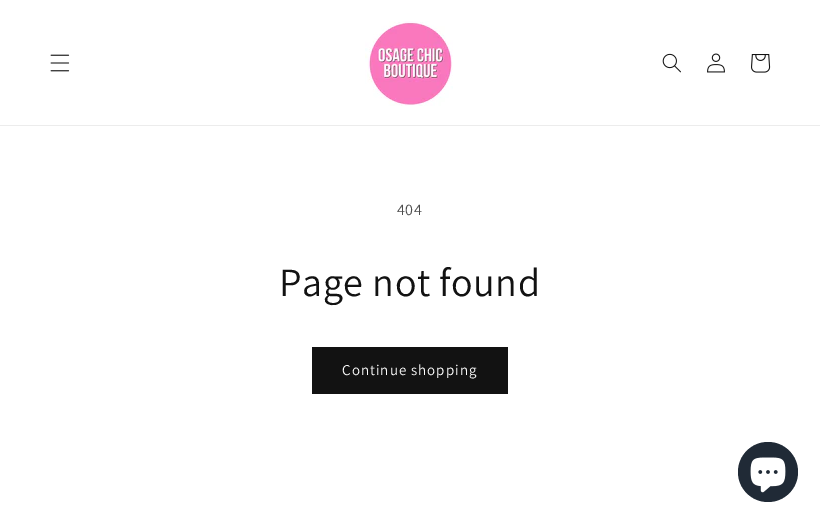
%!PS
<< /PageSize [820 523] >> setpagedevice
/rgb { 3 { 255 div 3 1 roll } repeat setrgbcolor } def
/font { [ exch dup neg 0 0 3 -1 roll 0 0 ] selectfont } def
/circle { newpath 0 360 arc closepath } def
/picture { 5 dict begin { /h /w /y /x /name } { exch def } forall
  gsave x y translate w h scale
  w h 8 [w 0 0 h 0 0] name (r) file false 3 colorimage grestore end } def
0 523 translate 1 -1 scale
4 setmiterlimit
255 255 255 rgb
0 0 820 523 rectfill
236 236 236 rgb
0 125 820 1 rectfill
(img/1.rgb) 50 54 20 18 picture
(img/2.rgb) 365 21 88 85 picture
(img/3.rgb) 662 53 19 20 picture
(img/4.rgb) 707 53 18 20 picture
(img/5.rgb) 751 54 20 19 picture
18 18 18 rgb
312 347 196 47 rectfill
32 42 54 rgb
768 472 30 circle fill
(img/6.rgb) 750 457 36 36 picture
/Assistant-Regular 16 font
77 77 77 rgb
397 215 moveto 0.6 0 (404) ashow
/Assistant-Regular 40 font
18 18 18 rgb
279 296 moveto 0.6 0 (Page not found) ashow
/Assistant-Regular 15 font
255 255 255 rgb
342 375 moveto 1 0 (Continue shopping) ashow
showpage
